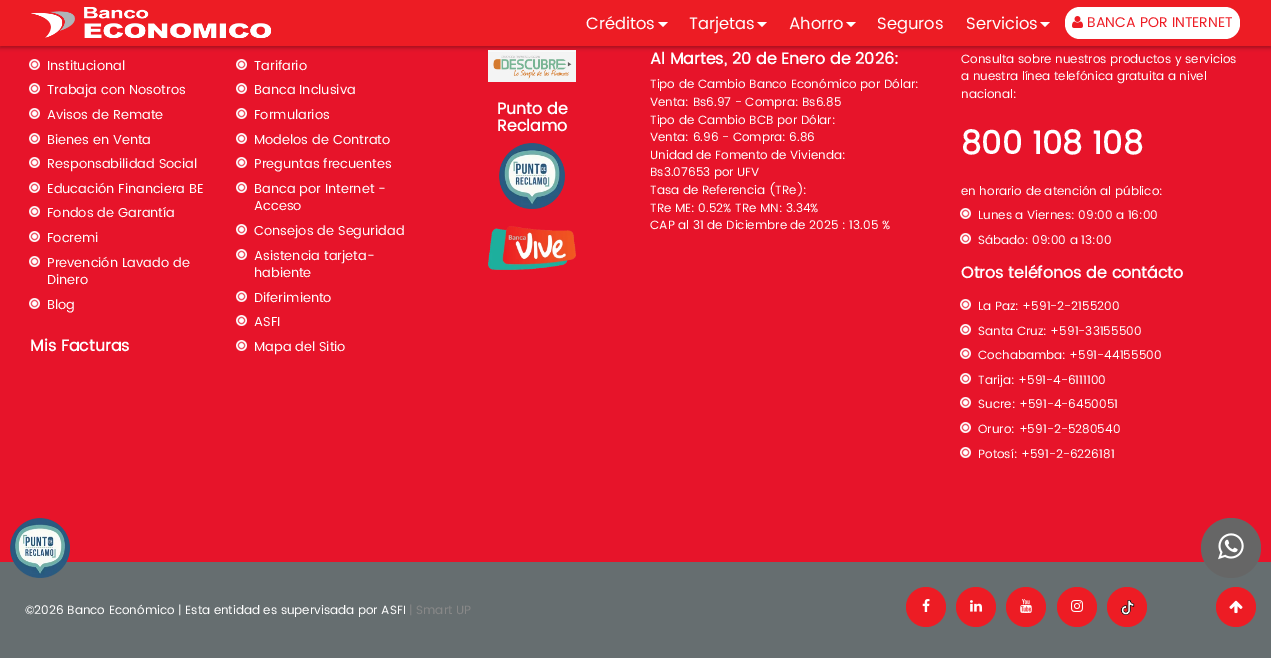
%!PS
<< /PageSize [1271 658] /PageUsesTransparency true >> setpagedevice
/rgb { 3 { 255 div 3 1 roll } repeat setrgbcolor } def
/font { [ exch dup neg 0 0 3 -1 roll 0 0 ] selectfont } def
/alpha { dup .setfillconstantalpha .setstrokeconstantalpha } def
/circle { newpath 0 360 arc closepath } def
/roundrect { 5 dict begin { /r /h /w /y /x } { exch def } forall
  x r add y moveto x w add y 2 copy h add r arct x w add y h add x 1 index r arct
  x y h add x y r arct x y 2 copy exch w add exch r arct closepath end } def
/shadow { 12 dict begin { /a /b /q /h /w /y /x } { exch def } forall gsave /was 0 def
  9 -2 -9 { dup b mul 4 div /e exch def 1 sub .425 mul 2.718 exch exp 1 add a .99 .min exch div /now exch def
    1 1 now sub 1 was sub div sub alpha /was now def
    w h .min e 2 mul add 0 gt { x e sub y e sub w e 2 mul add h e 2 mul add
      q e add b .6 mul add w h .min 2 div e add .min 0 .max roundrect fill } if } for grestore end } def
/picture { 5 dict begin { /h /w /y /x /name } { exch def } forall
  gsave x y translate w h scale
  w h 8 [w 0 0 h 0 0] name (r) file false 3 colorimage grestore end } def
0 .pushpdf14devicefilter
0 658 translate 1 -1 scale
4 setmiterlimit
231 20 42 rgb
0 0 1271 658 rectfill
(img/4.rgb) 488 50 88 32 picture
0 0 0 rgb
0 2 1271 46 0 2 0.3 shadow
237 28 36 rgb
0 0 1271 46 rectfill
(img/1.rgb) 31 7 240 31 picture
255 255 255 rgb
658 22 moveto 668 22 lineto 663 27 lineto closepath fill
757 22 moveto 767 22 lineto 762 27 lineto closepath fill
846 22 moveto 856 22 lineto 851 27 lineto closepath fill
1040 22 moveto 1050 22 lineto 1045 27 lineto closepath fill
1065 7 175 32 15 roundrect fill
(img/2.rgb) 1072 16 11 12 picture
(img/3.rgb) 29 59 11 11 picture
(img/3.rgb) 29 83 11 11 picture
(img/3.rgb) 29 108 11 11 picture
(img/3.rgb) 29 133 11 11 picture
(img/3.rgb) 29 157 11 11 picture
(img/3.rgb) 29 182 11 11 picture
(img/3.rgb) 29 206 11 11 picture
(img/3.rgb) 29 231 11 11 picture
(img/3.rgb) 29 256 11 11 picture
(img/3.rgb) 29 298 11 11 picture
(img/3.rgb) 236 59 11 11 picture
(img/3.rgb) 236 83 11 11 picture
(img/3.rgb) 236 108 11 11 picture
(img/3.rgb) 236 133 11 11 picture
(img/3.rgb) 236 157 11 11 picture
(img/3.rgb) 236 182 11 11 picture
(img/3.rgb) 236 224 11 11 picture
(img/3.rgb) 236 249 11 11 picture
(img/3.rgb) 236 291 11 11 picture
(img/3.rgb) 236 315 11 11 picture
(img/3.rgb) 236 340 11 11 picture
(img/5.rgb) 499 143 66 66 picture
(img/6.rgb) 488 226 88 44 picture
(img/3.rgb) 960 208 11 11 picture
(img/3.rgb) 960 233 11 11 picture
(img/3.rgb) 960 299 11 11 picture
(img/3.rgb) 960 324 11 11 picture
(img/3.rgb) 960 348 11 11 picture
(img/3.rgb) 960 373 11 11 picture
(img/3.rgb) 960 397 11 11 picture
(img/3.rgb) 960 422 11 11 picture
(img/3.rgb) 960 447 11 11 picture
102 110 112 rgb
0 562 1271 96 rectfill
(img/7.rgb) 10 518 60 60 picture
102 102 102 rgb
1231 548 30 circle fill
(img/8.rgb) 1218 533 26 27 picture
237 28 36 rgb
926 607 20 circle fill
(img/9.rgb) 922 599 8 13 picture
976 607 20 circle fill
(img/10.rgb) 970 600 12 12 picture
1026 607 20 circle fill
(img/11.rgb) 1020 599 12 14 picture
1077 607 20 circle fill
(img/12.rgb) 1071 600 12 12 picture
1127 607 20 circle fill
(img/13.rgb) 1120 600 15 15 picture
1236 607 20 circle fill
(img/14.rgb) 1229 600 14 14 picture
/Poppins-Regular 16.5 font
255 255 255 rgb
[
  [(Créditos) 586 29]
  [(Tarjetas) 689 29]
  [(Ahorro) 789 29]
  [(Seguros) 877 29]
  [(Servicios) 966 29]
] { aload pop moveto show } forall
/Poppins-Regular 14 font
237 28 36 rgb
1087 27 moveto (BANCA POR INTERNET) show
/Poppins-Regular 13 font
255 255 255 rgb
[
  [(Institucional) 47 70]
  [(Trabaja con Nosotros) 47 94]
  [(Avisos de Remate) 47 119]
  [(Bienes en Venta) 47 144]
  [(Responsabilidad Social) 47 168]
  [(Educación Financiera BE) 47 193]
  [(Fondos de Garantía) 47 217]
  [(Focremi) 47 242]
  [(Prevención Lavado de) 47 267]
  [(Dinero) 47 284]
  [(Blog) 47 309]
] { aload pop moveto show } forall
/Poppins-Bold 16 font
30 351 moveto (Mis Facturas) show
/Poppins-Regular 13 font
[
  [(Tarifario) 254 70]
  [(Banca Inclusiva) 254 94]
  [(Formularios) 254 119]
  [(Modelos de Contrato) 254 144]
  [(Preguntas frecuentes) 254 168]
  [(Banca por Internet -) 254 193]
  [(Acceso) 254 210]
  [(Consejos de Seguridad) 254 235]
  [(Asistencia tarjeta-) 254 260]
  [(habiente) 254 277]
  [(Diferimiento) 254 302]
  [(ASFI) 254 326]
  [(Mapa del Sitio) 254 351]
] { aload pop moveto show } forall
/Poppins-Bold 16 font
[
  [(Punto de) 497 114]
  [(Reclamo) 497 131]
  [(Al Martes, 20 de Enero de 2026:) 650 64]
] { aload pop moveto show } forall
/Poppins-Regular 12 font
[
  [(Tipo de Cambio Banco Económico por Dólar:) 650 88]
  [(Venta: Bs6.97 - Compra: Bs6.85) 650 106]
  [(Tipo de Cambio BCB por Dólar:) 650 124]
  [(Venta: 6.96 - Compra: 6.86) 650 141]
  [(Unidad de Fomento de Vivienda:) 650 159]
  [(Bs3.07653 por UFV) 650 176]
  [(Tasa de Referencia \(TRe\):) 650 194]
  [(TRe ME: 0.52% TRe MN: 3.34%) 650 212]
  [(CAP al 31 de Diciembre de 2025 : 13.05 %) 650 229]
  [(Consulta sobre nuestros productos y servicios) 961 63]
  [(a nuestra línea telefónica gratuita a nivel) 961 80]
  [(nacional:) 961 98]
] { aload pop moveto show } forall
/Poppins-Bold 32 font
961 154 moveto (800 108 108) show
/Poppins-Regular 12 font
[
  [(en horario de atención al público:) 961 195]
  [(Lunes a Viernes: 09:00 a 16:00) 978 219]
  [(Sábado: 09:00 a 13:00) 978 244]
] { aload pop moveto show } forall
/Poppins-Bold 16 font
961 278 moveto (Otros teléfonos de contácto) show
/Poppins-Regular 12 font
[
  [(La Paz: +591-2-2155200) 978 310]
  [(Santa Cruz: +591-33155500) 978 335]
  [(Cochabamba: +591-44155500) 978 359]
  [(Tarija: +591-4-6111100) 978 384]
  [(Sucre: +591-4-6450051) 978 408]
  [(Oruro: +591-2-5280540) 978 433]
  [(Potosí: +591-2-6226181) 978 458]
  [(©2026 Banco Económico | Esta entidad es supervisada por ASFI) 25 614]
] { aload pop moveto show } forall
136 136 136 rgb
409 614 moveto (| Smart UP) show
.poppdf14devicefilter showpage
